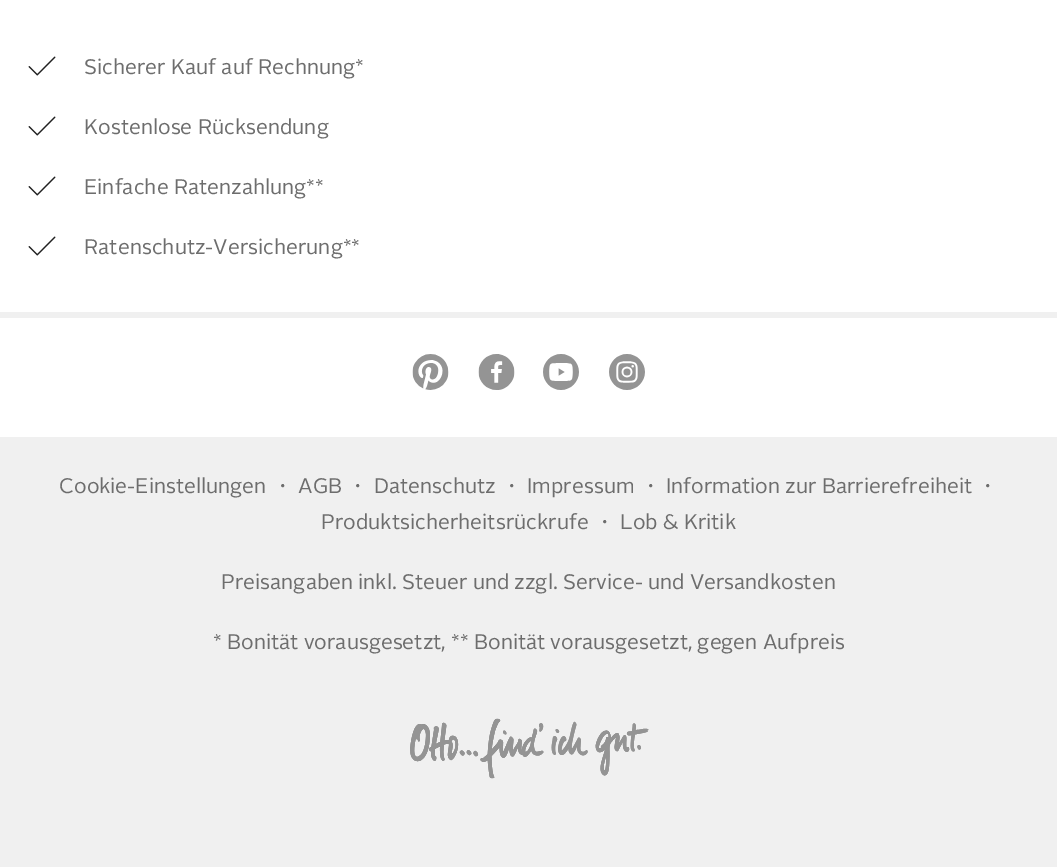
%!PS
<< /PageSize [1057 867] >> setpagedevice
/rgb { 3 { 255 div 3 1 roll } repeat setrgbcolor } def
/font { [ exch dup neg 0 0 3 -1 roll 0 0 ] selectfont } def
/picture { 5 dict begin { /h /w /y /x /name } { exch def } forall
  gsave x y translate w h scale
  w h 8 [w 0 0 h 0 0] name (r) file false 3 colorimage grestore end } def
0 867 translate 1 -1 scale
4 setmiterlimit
240 240 240 rgb
0 0 1057 867 rectfill
255 255 255 rgb
0 0 1057 312 rectfill
(img/1.rgb) 28 56 28 20 picture
(img/1.rgb) 28 116 28 20 picture
(img/1.rgb) 28 176 28 20 picture
(img/1.rgb) 28 236 28 20 picture
0 318 1057 119 rectfill
(img/2.rgb) 412 354 37 36 picture
(img/3.rgb) 478 354 37 36 picture
(img/4.rgb) 543 354 36 36 picture
(img/5.rgb) 609 354 36 36 picture
(img/6.rgb) 410 718 239 61 picture
/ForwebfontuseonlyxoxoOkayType-Medium 21 font
109 109 109 rgb
[
  [(Sicherer Kauf auf Rechnung*) 84 74]
  [(Kostenlose Rücksendung) 84 134]
  [(Einfache Ratenzahlung**) 84 194]
  [(Ratenschutz-Versicherung**) 84 254]
  [(Cookie-Einstellungen) 59 493]
] { aload pop moveto show } forall
/WenQuanYiZenHei-Medium 21 font
272 493 moveto (・) show
/ForwebfontuseonlyxoxoOkayType-Medium 21 font
298 493 moveto (AGB) show
/WenQuanYiZenHei-Medium 21 font
347 493 moveto (・) show
/ForwebfontuseonlyxoxoOkayType-Medium 21 font
374 493 moveto (Datenschutz) show
/WenQuanYiZenHei-Medium 21 font
501 493 moveto (・) show
/ForwebfontuseonlyxoxoOkayType-Medium 21 font
527 493 moveto (Impressum) show
/WenQuanYiZenHei-Medium 21 font
640 493 moveto (・) show
/ForwebfontuseonlyxoxoOkayType-Medium 21 font
666 493 moveto (Information zur Barrierefreiheit) show
/WenQuanYiZenHei-Medium 21 font
977 493 moveto (・) show
/ForwebfontuseonlyxoxoOkayType-Medium 21 font
321 529 moveto (Produktsicherheitsrückrufe) show
/WenQuanYiZenHei-Medium 21 font
594 529 moveto (・) show
/ForwebfontuseonlyxoxoOkayType-Medium 21 font
[
  [(Lob & Kritik) 620 529]
  [(Preisangaben inkl. Steuer und zzgl. Service- und Versandkosten) 221 589]
  [(* Bonität vorausgesetzt, ** Bonität vorausgesetzt, gegen Aufpreis) 213 649]
] { aload pop moveto show } forall
showpage
